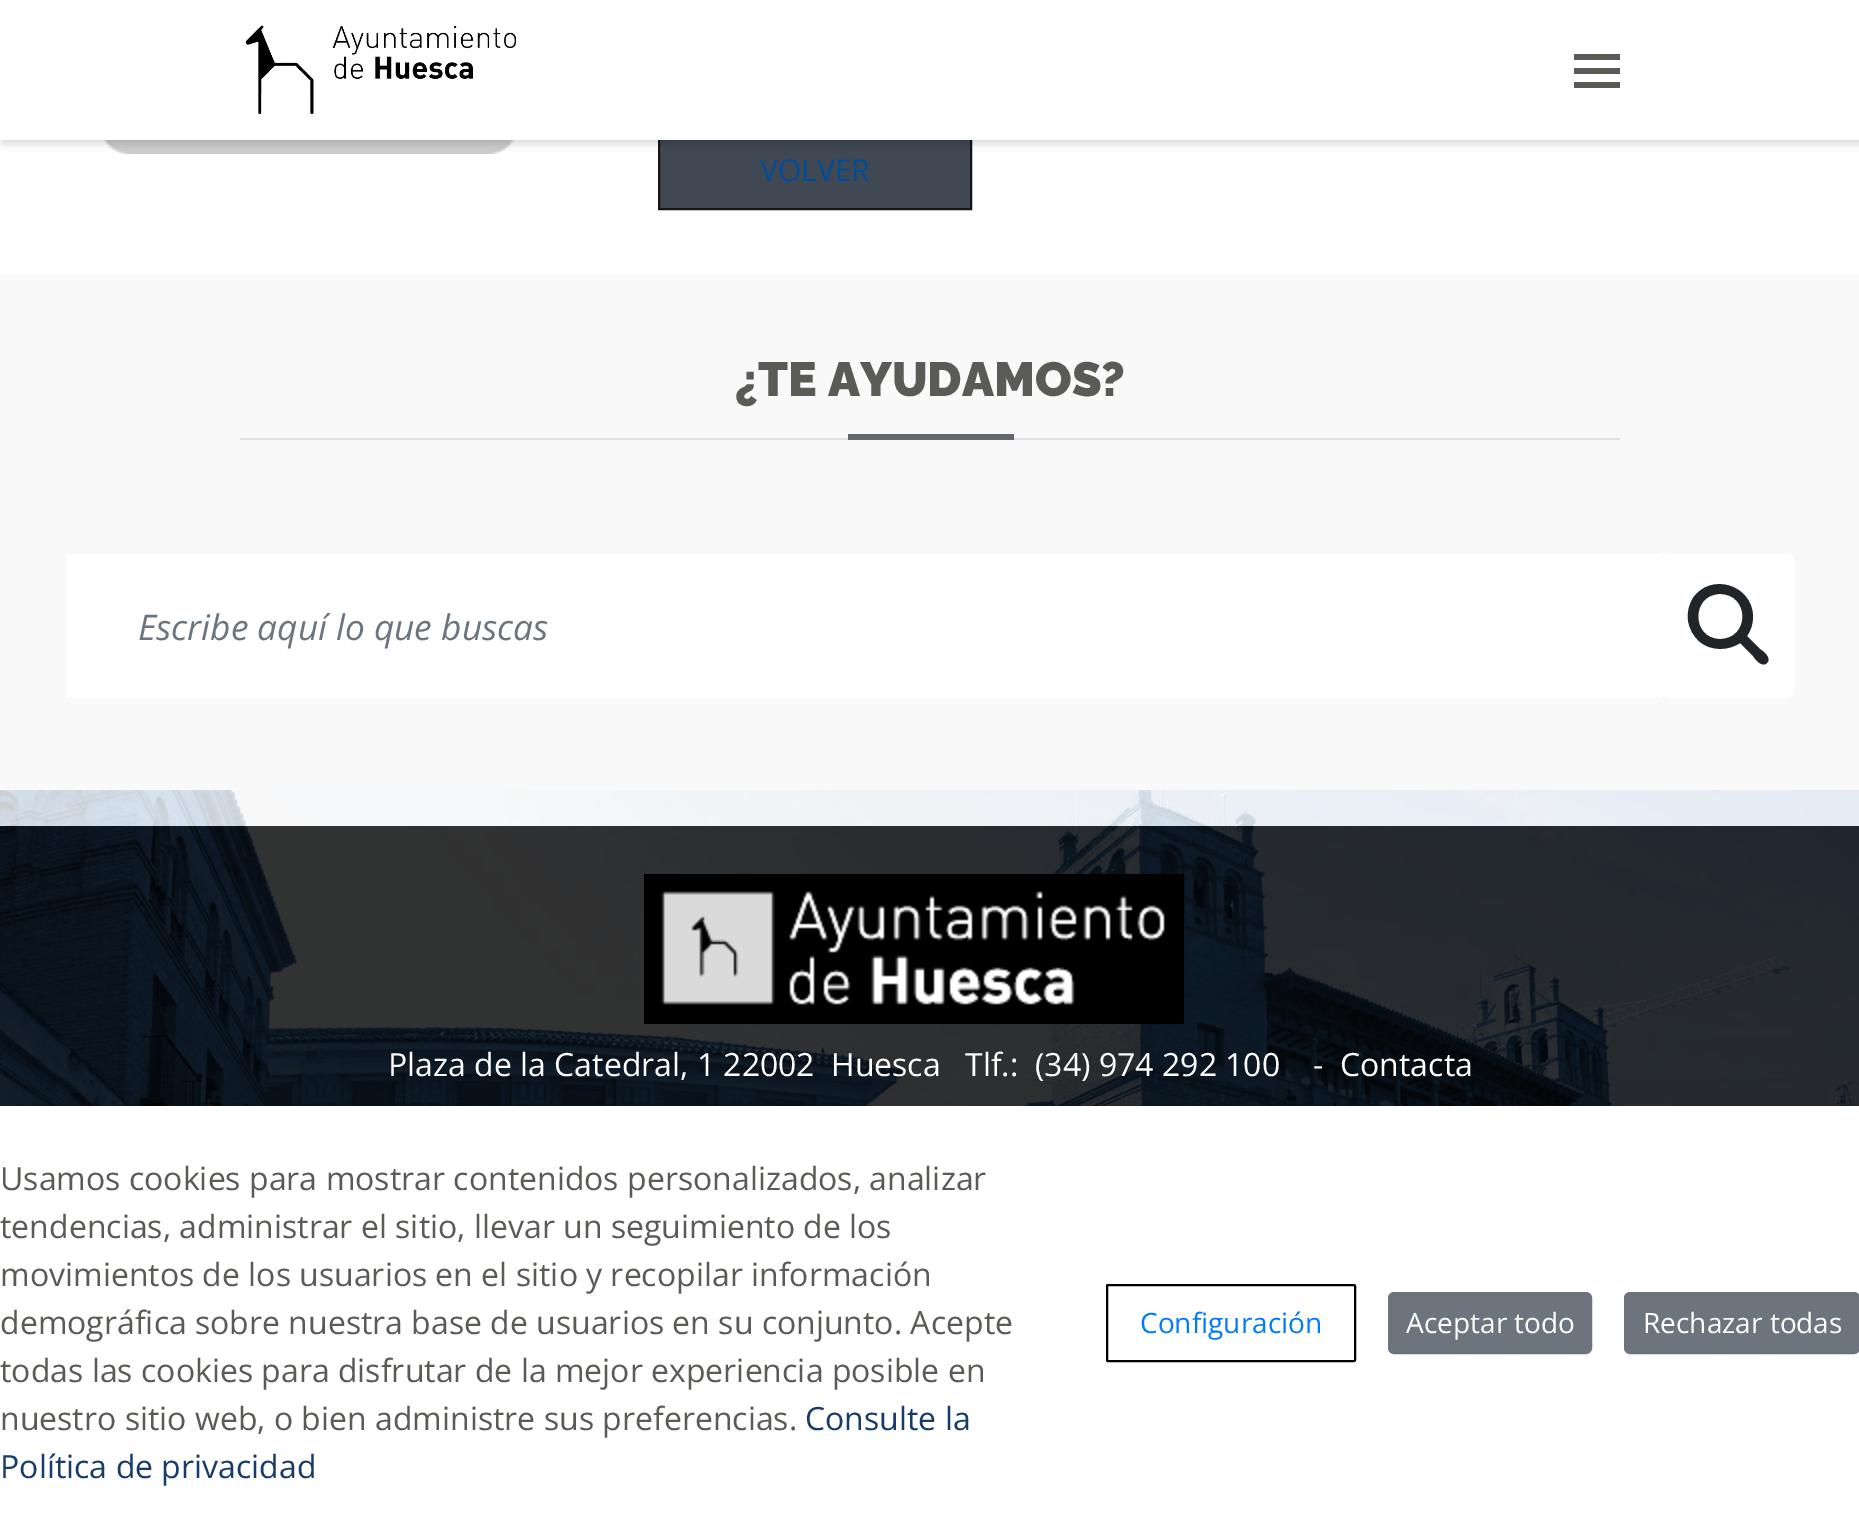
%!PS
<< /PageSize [1859 1537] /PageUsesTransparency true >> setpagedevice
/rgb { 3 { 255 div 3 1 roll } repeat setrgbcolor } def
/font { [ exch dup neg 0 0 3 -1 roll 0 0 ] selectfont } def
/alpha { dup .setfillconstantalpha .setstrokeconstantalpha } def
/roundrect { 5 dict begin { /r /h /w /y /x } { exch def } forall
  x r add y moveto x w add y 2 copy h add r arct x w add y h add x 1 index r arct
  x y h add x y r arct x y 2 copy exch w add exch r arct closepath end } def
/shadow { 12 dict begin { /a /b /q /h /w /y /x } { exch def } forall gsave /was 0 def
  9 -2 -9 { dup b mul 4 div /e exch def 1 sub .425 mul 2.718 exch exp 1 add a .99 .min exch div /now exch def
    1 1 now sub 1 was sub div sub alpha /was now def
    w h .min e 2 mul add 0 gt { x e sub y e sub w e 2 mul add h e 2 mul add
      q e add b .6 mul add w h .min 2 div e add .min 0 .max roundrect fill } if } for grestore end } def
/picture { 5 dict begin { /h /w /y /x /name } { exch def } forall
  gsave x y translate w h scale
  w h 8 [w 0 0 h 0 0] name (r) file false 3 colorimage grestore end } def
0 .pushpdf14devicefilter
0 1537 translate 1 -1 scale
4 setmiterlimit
255 255 255 rgb
0 0 1859 1537 rectfill
(img/1.rgb) 0 790 1859 316 picture
(img/3.rgb) 103 140 412 14 picture
64 72 83 rgb
660 140 310 68 rectfill
23 20 19 rgb
2 setlinewidth
659 129 312 80 rectstroke
0 0 0 rgb
2 4 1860 140 0 4 0.15 shadow
255 255 255 rgb
0 0 1859 140 rectfill
(img/2.rgb) 245 25 271 89 picture
[
  [1574 54 46 6 90 90 87]
  [1574 68 46 6 90 90 87]
  [1574 82 46 6 90 90 87]
] { aload pop rgb rectfill } forall
0.8 alpha
[
  [0 274 1859 552 248 248 248]
] { aload pop rgb rectfill } forall
1 alpha
[
  [240 438 1380 2 222 226 230]
  [848 434 166 6 100 104 109]
  [66 554 1596 144 255 255 255]
] { aload pop rgb rectfill } forall
1662 554 132 144 8 roundrect fill
33 37 41 rgb
1753 616 moveto 1753 624 1751 630 1747 636 curveto 1760 649 lineto 1763 651 1772 658 1767 663 curveto 1762 668 1755 659 1753 656 curveto 1740 643 lineto 1728 651 1711 651 1700 642 curveto 1693 636 1689 628 1688 620 curveto 1687 612 1689 605 1693 598 curveto 1711 572 1752 585 1753 616 curveto closepath 1720 639 moveto 1750 639 1750 594 1720 594 curveto 1691 594 1691 639 1720 639 curveto closepath fill
(img/4.rgb) 644 874 540 150 picture
0 0 0 rgb
0 1138 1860 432 0 48 0.18 shadow
255 255 255 rgb
0 1106 1859 431 rectfill
0 0 0 rgb
1107 1285 248 76 1 roundrect stroke
108 117 125 rgb
1389 1293 202 60 5 roundrect gsave fill grestore
stroke
1625 1293 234 60 5 roundrect gsave fill grestore
stroke
/OpenSans-Regular 30 font
0 76 153 rgb
760 181 moveto (VOLVER) show
/Raleway-Black 48 font
90 90 87 rgb
735 396 moveto (¿TE AYUDAMOS?) show
/OpenSans-Italic 35.25 font
108 117 125 rgb
138 640 moveto (Escribe aquí lo que buscas) show
/OpenSans-Regular 32 font
255 255 255 rgb
[
  [(Plaza de la Catedral, 1 22002) 388 1076]
  [(Huesca) 831 1076]
  [(Tlf.:) 965 1076]
  [(\(34\) 974 292 100) 1035 1076]
  [(-) 1313 1076]
  [(Contacta) 1340 1076]
] { aload pop moveto show } forall
90 90 87 rgb
[
  [(Usamos cookies para mostrar contenidos personalizados, analizar) 0 1190]
  [(tendencias, administrar el sitio, llevar un seguimiento de los) 0 1238]
  [(movimientos de los usuarios en el sitio y recopilar información) 0 1286]
  [(demográfica sobre nuestra base de usuarios en su conjunto. Acepte) 0 1334]
  [(todas las cookies para disfrutar de la mejor experiencia posible en) 0 1382]
  [(nuestro sitio web, o bien administre sus preferencias.) 0 1430]
] { aload pop moveto show } forall
24 60 105 rgb
805 1430 moveto (Consulte la) show
0 1478 moveto (Política de privacidad) show
/OpenSans-Regular 28 font
0 123 255 rgb
1140 1333 moveto (Configuración) show
255 255 255 rgb
1406 1333 moveto (Aceptar todo) show
1643 1333 moveto (Rechazar todas) show
.poppdf14devicefilter showpage
